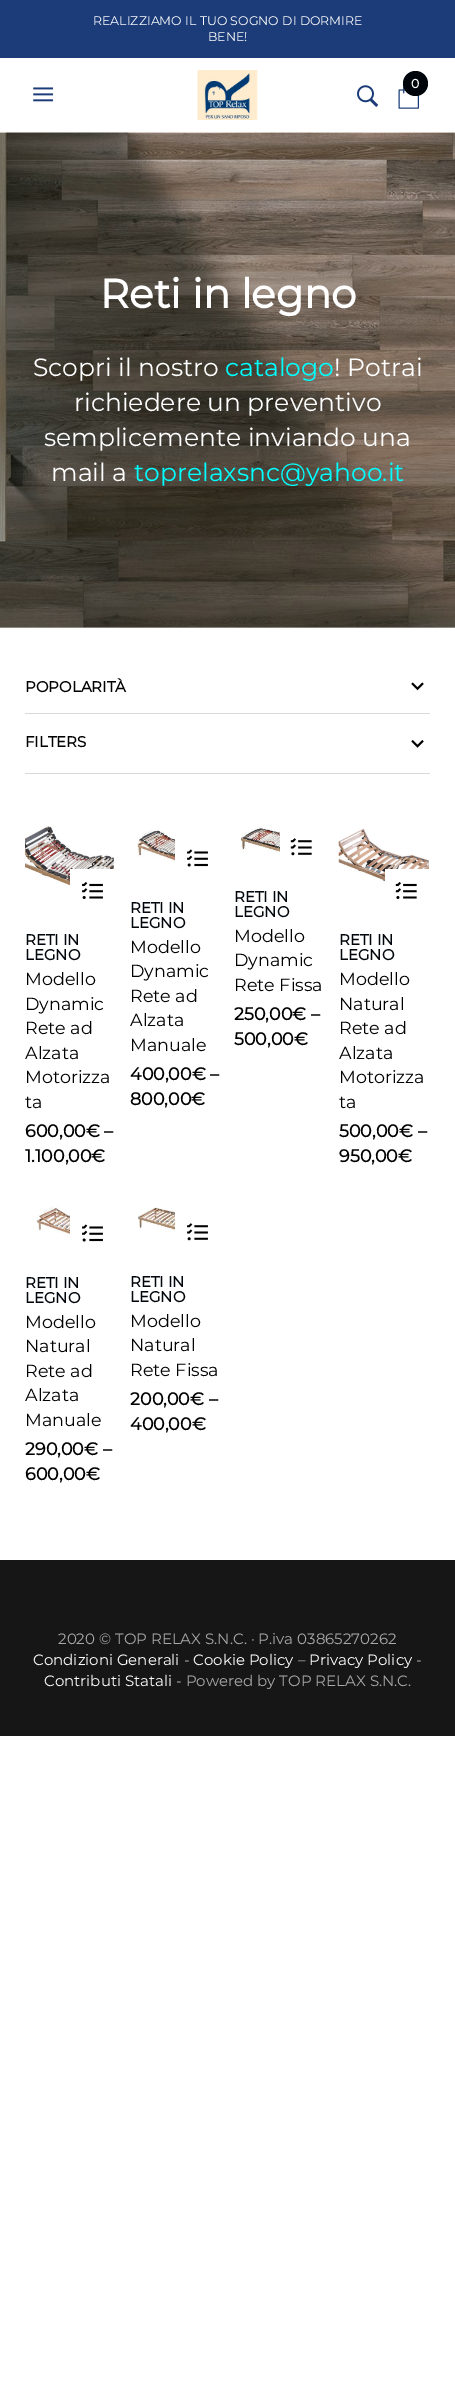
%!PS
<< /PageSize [455 2396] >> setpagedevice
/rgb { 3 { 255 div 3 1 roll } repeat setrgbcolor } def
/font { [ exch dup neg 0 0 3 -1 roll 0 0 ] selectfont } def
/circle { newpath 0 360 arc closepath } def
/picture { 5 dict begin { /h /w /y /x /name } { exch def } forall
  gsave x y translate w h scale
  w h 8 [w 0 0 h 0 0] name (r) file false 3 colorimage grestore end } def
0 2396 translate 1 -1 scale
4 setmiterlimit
255 255 255 rgb
0 0 455 2396 rectfill
199 199 199 rgb
0 627 455 1 rectfill
28 60 121 rgb
0 0 455 58 rectfill
(img/1.rgb) 197 70 61 50 picture
(img/2.rgb) 398 85 21 24 picture
0 5 11 rgb
415.5 83.5 12.5 circle fill
(img/3.rgb) 357 85 22 22 picture
(img/4.rgb) 33 87 21 15 picture
(img/5.rgb) 0 132 455 496 picture
217 217 217 rgb
25 713 405 1 rectfill
(img/6.rgb) 411 682 13 9 picture
(img/7.rgb) 411 740 13 8 picture
25 773 405 1 rectfill
(img/8.rgb) 25 826 89 86 picture
255 255 255 rgb
70 869 44 43 rectfill
(img/9.rgb) 82 882 21 17 picture
(img/10.rgb) 136 829 79 51 picture
175 838 40 42 rectfill
(img/11.rgb) 187 849 21 18 picture
(img/12.rgb) 240 826 40 43 picture
(img/13.rgb) 290 838 22 18 picture
(img/14.rgb) 338 828 91 76 picture
385 869 44 35 rectfill
(img/15.rgb) 395 882 22 17 picture
(img/16.rgb) 36 1205 72 47 picture
70 1214 38 38 rectfill
(img/11.rgb) 82 1224 21 18 picture
(img/17.rgb) 138 1207 73 39 picture
175 1211 36 35 rectfill
(img/18.rgb) 187 1223 21 18 picture
22 22 22 rgb
0 1560 455 176 rectfill
/Montserrat-Regular 12.5 font
255 255 255 rgb
93 25 moveto (REALIZZIAMO IL TUO SOGNO DI DORMIRE) show
208 41 moveto (BENE!) show
/Montserrat-Bold 12.5 font
411 88 moveto (0) show
/Montserrat-Bold 40.5 font
100 308 moveto (Reti in legno) show
/Montserrat-Regular 25 font
33 376 moveto (Scopri il nostro) show
0 255 255 rgb
225 376 moveto (catalogo) show
255 255 255 rgb
[
  [(! Potrai) 334 376]
  [(richiedere un preventivo) 74 411]
  [(semplicemente inviando una) 44 446]
  [(mail a) 51 481]
] { aload pop moveto show } forall
0 255 255 rgb
134 481 moveto (toprelaxsnc@yahoo.it) show
/Montserrat-Bold 15 font
0 0 0 rgb
25 692 moveto (POPOLARITÀ) show
25 747 moveto (FILTERS) show
0 5 11 rgb
25 945 moveto (RETI IN) show
25 960 moveto (LEGNO) show
/Montserrat-Regular 17.5 font
0 0 0 rgb
[
  [(Modello) 25 985]
  [(Dynamic) 25 1010]
  [(Rete ad) 25 1034]
  [(Alzata) 25 1059]
  [(Motorizza) 25 1083]
  [(ta) 25 1108]
] { aload pop moveto show } forall
/Montserrat-Bold 17.5 font
25 1137 moveto (600,00€ –) show
25 1162 moveto (1.100,00€) show
/Montserrat-Bold 15 font
0 5 11 rgb
130 913 moveto (RETI IN) show
130 928 moveto (LEGNO) show
/Montserrat-Regular 17.5 font
0 0 0 rgb
[
  [(Modello) 130 953]
  [(Dynamic) 130 977]
  [(Rete ad) 130 1002]
  [(Alzata) 130 1026]
  [(Manuale) 130 1051]
] { aload pop moveto show } forall
/Montserrat-Bold 17.5 font
130 1080 moveto (400,00€ –) show
130 1105 moveto (800,00€) show
/Montserrat-Bold 15 font
0 5 11 rgb
234 902 moveto (RETI IN) show
234 917 moveto (LEGNO) show
/Montserrat-Regular 17.5 font
0 0 0 rgb
[
  [(Modello) 234 942]
  [(Dynamic) 234 966]
  [(Rete Fissa) 234 991]
] { aload pop moveto show } forall
/Montserrat-Bold 17.5 font
234 1020 moveto (250,00€ –) show
234 1045 moveto (500,00€) show
/Montserrat-Bold 15 font
0 5 11 rgb
339 945 moveto (RETI IN) show
339 960 moveto (LEGNO) show
/Montserrat-Regular 17.5 font
0 0 0 rgb
[
  [(Modello) 339 985]
  [(Natural) 339 1010]
  [(Rete ad) 339 1034]
  [(Alzata) 339 1059]
  [(Motorizza) 339 1083]
  [(ta) 339 1108]
] { aload pop moveto show } forall
/Montserrat-Bold 17.5 font
339 1137 moveto (500,00€ –) show
339 1162 moveto (950,00€) show
/Montserrat-Bold 15 font
0 5 11 rgb
25 1288 moveto (RETI IN) show
25 1303 moveto (LEGNO) show
/Montserrat-Regular 17.5 font
0 0 0 rgb
[
  [(Modello) 25 1328]
  [(Natural) 25 1352]
  [(Rete ad) 25 1377]
  [(Alzata) 25 1401]
  [(Manuale) 25 1426]
] { aload pop moveto show } forall
/Montserrat-Bold 17.5 font
25 1455 moveto (290,00€ –) show
25 1480 moveto (600,00€) show
/Montserrat-Bold 15 font
0 5 11 rgb
130 1287 moveto (RETI IN) show
130 1302 moveto (LEGNO) show
/Montserrat-Regular 17.5 font
0 0 0 rgb
[
  [(Modello) 130 1327]
  [(Natural) 130 1351]
  [(Rete Fissa) 130 1376]
] { aload pop moveto show } forall
/Montserrat-Bold 17.5 font
130 1405 moveto (200,00€ –) show
130 1430 moveto (400,00€) show
/Montserrat-Regular 15 font
168 168 168 rgb
58 1644 moveto (2020 © TOP RELAX S.N.C. · P.iva 03865270262) show
255 255 255 rgb
33 1665 moveto (Condizioni Generali) show
168 168 168 rgb
184 1665 moveto (-) show
255 255 255 rgb
193 1665 moveto (Cookie Policy) show
168 168 168 rgb
298 1665 moveto (–) show
255 255 255 rgb
309 1665 moveto (Privacy Policy) show
168 168 168 rgb
416 1665 moveto (-) show
255 255 255 rgb
44 1686 moveto (Contributi Statali) show
168 168 168 rgb
176 1686 moveto (- Powered by TOP RELAX S.N.C.) show
showpage
